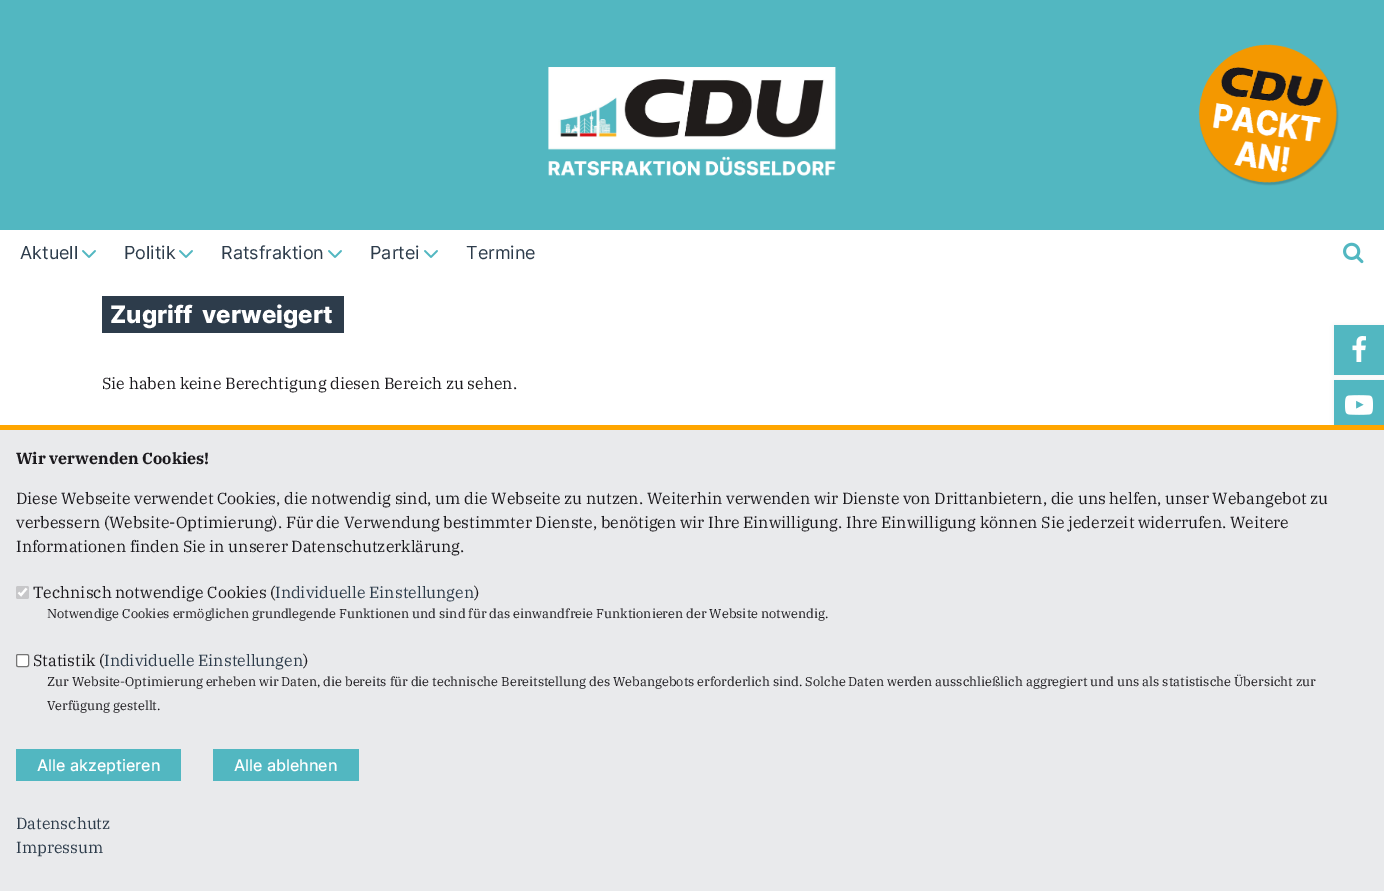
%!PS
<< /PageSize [1384 891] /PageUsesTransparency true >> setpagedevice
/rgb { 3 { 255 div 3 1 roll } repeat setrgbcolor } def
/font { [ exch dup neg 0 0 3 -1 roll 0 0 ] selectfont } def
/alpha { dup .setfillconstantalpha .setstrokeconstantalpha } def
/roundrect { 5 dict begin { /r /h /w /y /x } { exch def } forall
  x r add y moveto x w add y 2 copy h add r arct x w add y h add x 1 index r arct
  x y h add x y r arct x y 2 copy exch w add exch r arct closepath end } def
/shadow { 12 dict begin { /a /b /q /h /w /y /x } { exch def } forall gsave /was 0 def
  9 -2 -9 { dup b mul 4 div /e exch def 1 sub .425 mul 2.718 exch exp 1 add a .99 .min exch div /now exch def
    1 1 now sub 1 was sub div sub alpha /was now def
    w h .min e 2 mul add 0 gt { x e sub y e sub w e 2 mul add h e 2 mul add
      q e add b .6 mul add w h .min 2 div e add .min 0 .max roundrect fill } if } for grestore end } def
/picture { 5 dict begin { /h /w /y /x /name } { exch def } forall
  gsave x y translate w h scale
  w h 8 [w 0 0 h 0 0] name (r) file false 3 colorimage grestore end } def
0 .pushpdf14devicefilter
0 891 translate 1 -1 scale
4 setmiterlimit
255 255 255 rgb
0 0 1384 891 rectfill
82 183 193 rgb
0 0 1384 230 rectfill
(img/1.rgb) 548 67 288 109 picture
(img/2.rgb) 1198 44 141 142 picture
(img/3.rgb) 82 250 14 8 picture
(img/3.rgb) 179 250 14 8 picture
(img/3.rgb) 328 250 14 8 picture
(img/3.rgb) 424 250 14 8 picture
(img/4.rgb) 1343 242 21 22 picture
45 60 75 rgb
102 296 100 37 rectfill
202 296 142 37 rectfill
0 0 0 rgb
1334 325 50 50 0 2.5 0.05 shadow
82 183 193 rgb
1334 325 50 50 rectfill
(img/5.rgb) 1352 336 14 26 picture
0 0 0 rgb
1334 380 50 50 0 2.5 0.05 shadow
82 183 193 rgb
1334 380 50 45 rectfill
(img/6.rgb) 1345 395 28 20 picture
233 234 236 rgb
0 430 1384 461 rectfill
255 166 0 rgb
0 425 1384 5 rectfill
199 199 201 rgb
16 586 13 13 2 roundrect fill
255 255 255 rgb
2.1 setlinewidth
18.5 592.5 moveto 21 595 lineto 26.5 588.5 lineto stroke
16.5 654.5 12 12 1.5 roundrect gsave fill grestore
118 118 118 rgb
1 setlinewidth
stroke
82 183 193 rgb
16 749 165 32 rectfill
213 749 146 32 rectfill
/Inter-Regular 18 font
45 60 75 rgb
[
  [(Aktuell) 20 259]
  [(Politik) 124 259]
  [(Ratsfraktion) 221 259]
  [(Partei) 370 259]
  [(Termine) 466 259]
] { aload pop moveto show } forall
/Inter-ExtraBold 24 font
255 255 255 rgb
110 323 moveto (Zugriff) show
202 323 moveto (verweigert) show
/IBMPlexSerif-Regular 16 font
27 25 29 rgb
102 389 moveto (Sie haben keine Berechtigung diesen Bereich zu sehen.) show
/IBMPlexSerif-Bold 16 font
16 464 moveto (Wir verwenden Cookies!) show
/IBMPlexSerif-Regular 16 font
[
  [(Diese Webseite verwendet Cookies, die notwendig sind, um die Webseite zu nutzen. Weiterhin verwenden wir Dienste von Drittanbietern, die uns helfen, unser Webangebot zu) 16 504]
  [(verbessern \(Website-Optimierung\). Für die Verwendung bestimmter Dienste, benötigen wir Ihre Einwilligung. Ihre Einwilligung können Sie jederzeit widerrufen. Weitere) 16 528]
  [(Informationen finden Sie in unserer Datenschutzerklärung.) 16 552]
  [(Technisch notwendige Cookies \() 33 598]
] { aload pop moveto show } forall
45 60 75 rgb
275 598 moveto (Individuelle Einstellungen) show
27 25 29 rgb
474 598 moveto (\)) show
/IBMPlexSerif-Regular 12.8 font
47 618 moveto (Notwendige Cookies ermöglichen grundlegende Funktionen und sind für das einwandfreie Funktionieren der Website notwendig.) show
/IBMPlexSerif-Regular 16 font
33 666 moveto (Statistik \() show
45 60 75 rgb
104 666 moveto (Individuelle Einstellungen) show
27 25 29 rgb
303 666 moveto (\)) show
/IBMPlexSerif-Regular 12.8 font
47 686 moveto (Zur Website-Optimierung erheben wir Daten, die bereits für die technische Bereitstellung des Webangebots erforderlich sind. Solche Daten werden ausschließlich aggregiert und uns als statistische Übersicht zur) show
47 710 moveto (Verfügung gestellt.) show
/Inter-Medium 16 font
255 255 255 rgb
37 771 moveto (Alle akzeptieren) show
234 771 moveto (Alle ablehnen) show
/IBMPlexSerif-Regular 16 font
45 60 75 rgb
16 829 moveto (Datenschutz) show
16 853 moveto (Impressum) show
.poppdf14devicefilter showpage
